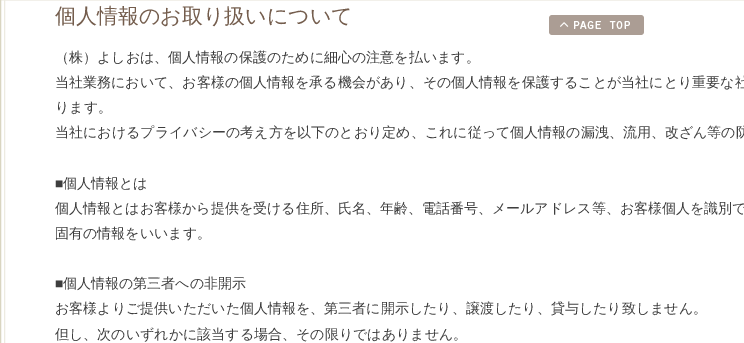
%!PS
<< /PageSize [744 343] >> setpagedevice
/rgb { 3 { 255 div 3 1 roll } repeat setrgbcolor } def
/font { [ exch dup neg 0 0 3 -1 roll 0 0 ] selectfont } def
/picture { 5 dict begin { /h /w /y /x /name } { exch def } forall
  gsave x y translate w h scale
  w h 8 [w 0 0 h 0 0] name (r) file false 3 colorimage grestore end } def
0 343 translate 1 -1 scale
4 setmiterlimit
255 255 255 rgb
0 0 744 343 rectfill
217 213 192 rgb
0.5 -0.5 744 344 rectstroke
237 235 225 rgb
4.5 -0.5 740 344 rectstroke
(img/1.rgb) 549 15 95 20 picture
/WenQuanYiZenHei-Medium 21 font
116 93 77 rgb
55 23 moveto (個人情報のお取り扱いについて) show
/WenQuanYiZenHei-Medium 14 font
62 62 62 rgb
[
  [(（株）よしおは、個人情報の保護のために細心の注意を払います。) 55 62]
  [(当社業務において、お客様の個人情報を承る機会があり、その個人情報を保護することが当社にとり重要な社) 55 87]
  [(ります。) 55 112]
  [(当社におけるプライバシーの考え方を以下のとおり定め、これに従って個人情報の漏洩、流用、改ざん等の防) 55 137]
] { aload pop moveto show } forall
/LiberationSans-Regular 14 font
55 188 moveto (■) show
/WenQuanYiZenHei-Medium 14 font
[
  [(個人情報とは) 63 188]
  [(個人情報とはお客様から提供を受ける住所、氏名、年齢、電話番号、メールアドレス等、お客様個人を識別で) 55 213]
  [(固有の情報をいいます。) 55 238]
] { aload pop moveto show } forall
/LiberationSans-Regular 14 font
55 288 moveto (■) show
/WenQuanYiZenHei-Medium 14 font
[
  [(個人情報の第三者への非開示) 63 288]
  [(お客様よりご提供いただいた個人情報を、第三者に開示したり、譲渡したり、貸与したり致しません。) 55 313]
  [(但し、次のいずれかに該当する場合、その限りではありません。) 55 339]
] { aload pop moveto show } forall
showpage
